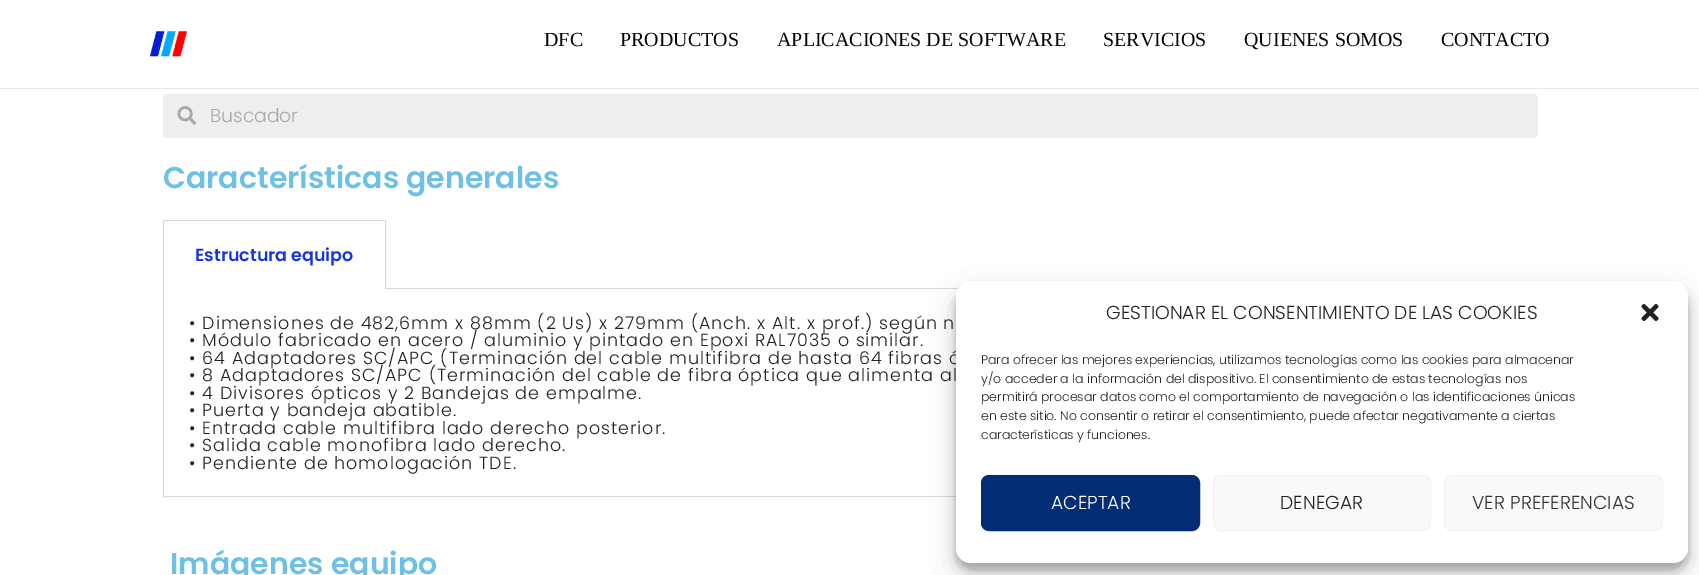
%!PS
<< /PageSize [1699 575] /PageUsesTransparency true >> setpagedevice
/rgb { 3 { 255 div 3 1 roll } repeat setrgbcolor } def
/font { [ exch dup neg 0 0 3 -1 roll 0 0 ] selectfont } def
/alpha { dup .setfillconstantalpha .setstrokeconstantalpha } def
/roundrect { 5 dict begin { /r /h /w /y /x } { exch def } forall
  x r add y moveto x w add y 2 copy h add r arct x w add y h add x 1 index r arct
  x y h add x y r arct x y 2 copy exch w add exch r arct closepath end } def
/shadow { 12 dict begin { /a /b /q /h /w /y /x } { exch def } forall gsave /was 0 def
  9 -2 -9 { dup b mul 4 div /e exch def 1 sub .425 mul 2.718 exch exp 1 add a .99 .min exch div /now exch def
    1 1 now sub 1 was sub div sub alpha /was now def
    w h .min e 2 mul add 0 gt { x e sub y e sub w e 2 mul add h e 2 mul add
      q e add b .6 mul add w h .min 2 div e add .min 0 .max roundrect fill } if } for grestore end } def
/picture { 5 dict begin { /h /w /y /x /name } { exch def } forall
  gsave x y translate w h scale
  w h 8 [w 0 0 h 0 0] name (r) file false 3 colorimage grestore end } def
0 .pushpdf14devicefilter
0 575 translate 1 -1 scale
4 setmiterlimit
255 255 255 rgb
0 0 1699 575 rectfill
230 230 230 rgb
0 88 1699 1 rectfill
(img/1.rgb) 150 31 38 26 picture
236 238 239 rgb
163 94 1375 44 4 roundrect fill
(img/2.rgb) 177 106 20 19 picture
[
  [163 220 223 1 213 216 220]
  [385 220 1 69 213 216 220]
  [163 220 1 69 213 216 220]
  [385 288 574 1 213 216 220]
  [163 496 793 1 213 216 220]
  [163 289 1 209 213 216 220]
] { aload pop rgb rectfill } forall
0 0 0 rgb
956 289 732 281 15 4 0.23 shadow
956 294 732 281 15 12.5 0.19 shadow
/LiberationSerif-Regular 20 font
3 3 3 rgb
[
  [(DFC) 544 46]
  [(PRODUCTOS) 620 46]
  [(APLICACIONES DE SOFTWARE) 777 46]
  [(SERVICIOS) 1103 46]
  [(QUIENES SOMOS) 1244 46]
  [(CONTACTO) 1441 46]
] { aload pop moveto show } forall
/Poppins-Light 18.75 font
168 168 169 rgb
210 122 moveto (Buscador) show
/Poppins-SemiBold 30 font
110 193 228 rgb
163 188 moveto (Características generales) show
/Poppins-SemiBold 17.5 font
21 53 228 rgb
195 261 moveto (Estructura equipo) show
/Poppins-Light 17.5 font
34 34 34 rgb
189 329 moveto 1 0 (• Dimensiones de 482,6mm x 88mm \(2 Us\) x 279mm \(Anch. x Alt. x prof.\) según n) ashow
189 346 moveto 1 0 (• Módulo fabricado en acero / aluminio y pintado en Epoxi RAL7035 o similar.) ashow
189 364 moveto 1 0 (• 64 Adaptadores SC/APC \(Terminación del cable multifibra de hasta 64 fibras ó) ashow
189 381 moveto 1 0 (• 8 Adaptadores SC/APC \(Terminación del cable de fibra óptica que alimenta al) ashow
189 399 moveto 1 0 (• 4 Divisores ópticos y 2 Bandejas de empalme.) ashow
189 416 moveto 1 0 (• Puerta y bandeja abatible.) ashow
189 434 moveto 1 0 (• Entrada cable multifibra lado derecho posterior.) ashow
189 451 moveto 1 0 (• Salida cable monofibra lado derecho.) ashow
189 469 moveto 1 0 (• Pendiente de homologación TDE.) ashow
/Poppins-SemiBold 30 font
110 193 228 rgb
170 574 moveto (Imágenes equipo) show
255 255 255 rgb
956 281 732 282 15 roundrect fill
/Poppins-Light 18.75 font
34 34 34 rgb
1106 319 moveto (GESTIONAR EL CONSENTIMIENTO DE LAS COOKIES) show
(img/3.rgb) 1641 303 18 18 picture
/Poppins-Light 12.5 font
[
  [(Para ofrecer las mejores experiencias, utilizamos tecnologías como las cookies para almacenar) 981 364]
  [(y/o acceder a la información del dispositivo. El consentimiento de estas tecnologías nos) 981 383]
  [(permitirá procesar datos como el comportamiento de navegación o las identificaciones únicas) 981 401]
  [(en este sitio. No consentir o retirar el consentimiento, puede afectar negativamente a ciertas) 981 420]
  [(características y funciones.) 981 439]
] { aload pop moveto show } forall
0 45 116 rgb
981.5 475.5 218 55 7.5 roundrect gsave fill grestore
stroke
/Poppins-Light 18.75 font
255 255 255 rgb
1051 509 moveto (ACEPTAR) show
249 249 249 rgb
1213.5 475.5 217 55 7.5 roundrect gsave fill grestore
242 242 242 rgb
stroke
34 34 34 rgb
1280 509 moveto (DENEGAR) show
249 249 249 rgb
1444.5 475.5 218 55 7.5 roundrect gsave fill grestore
242 242 242 rgb
stroke
51 51 51 rgb
1472 509 moveto (VER PREFERENCIAS) show
.poppdf14devicefilter showpage
